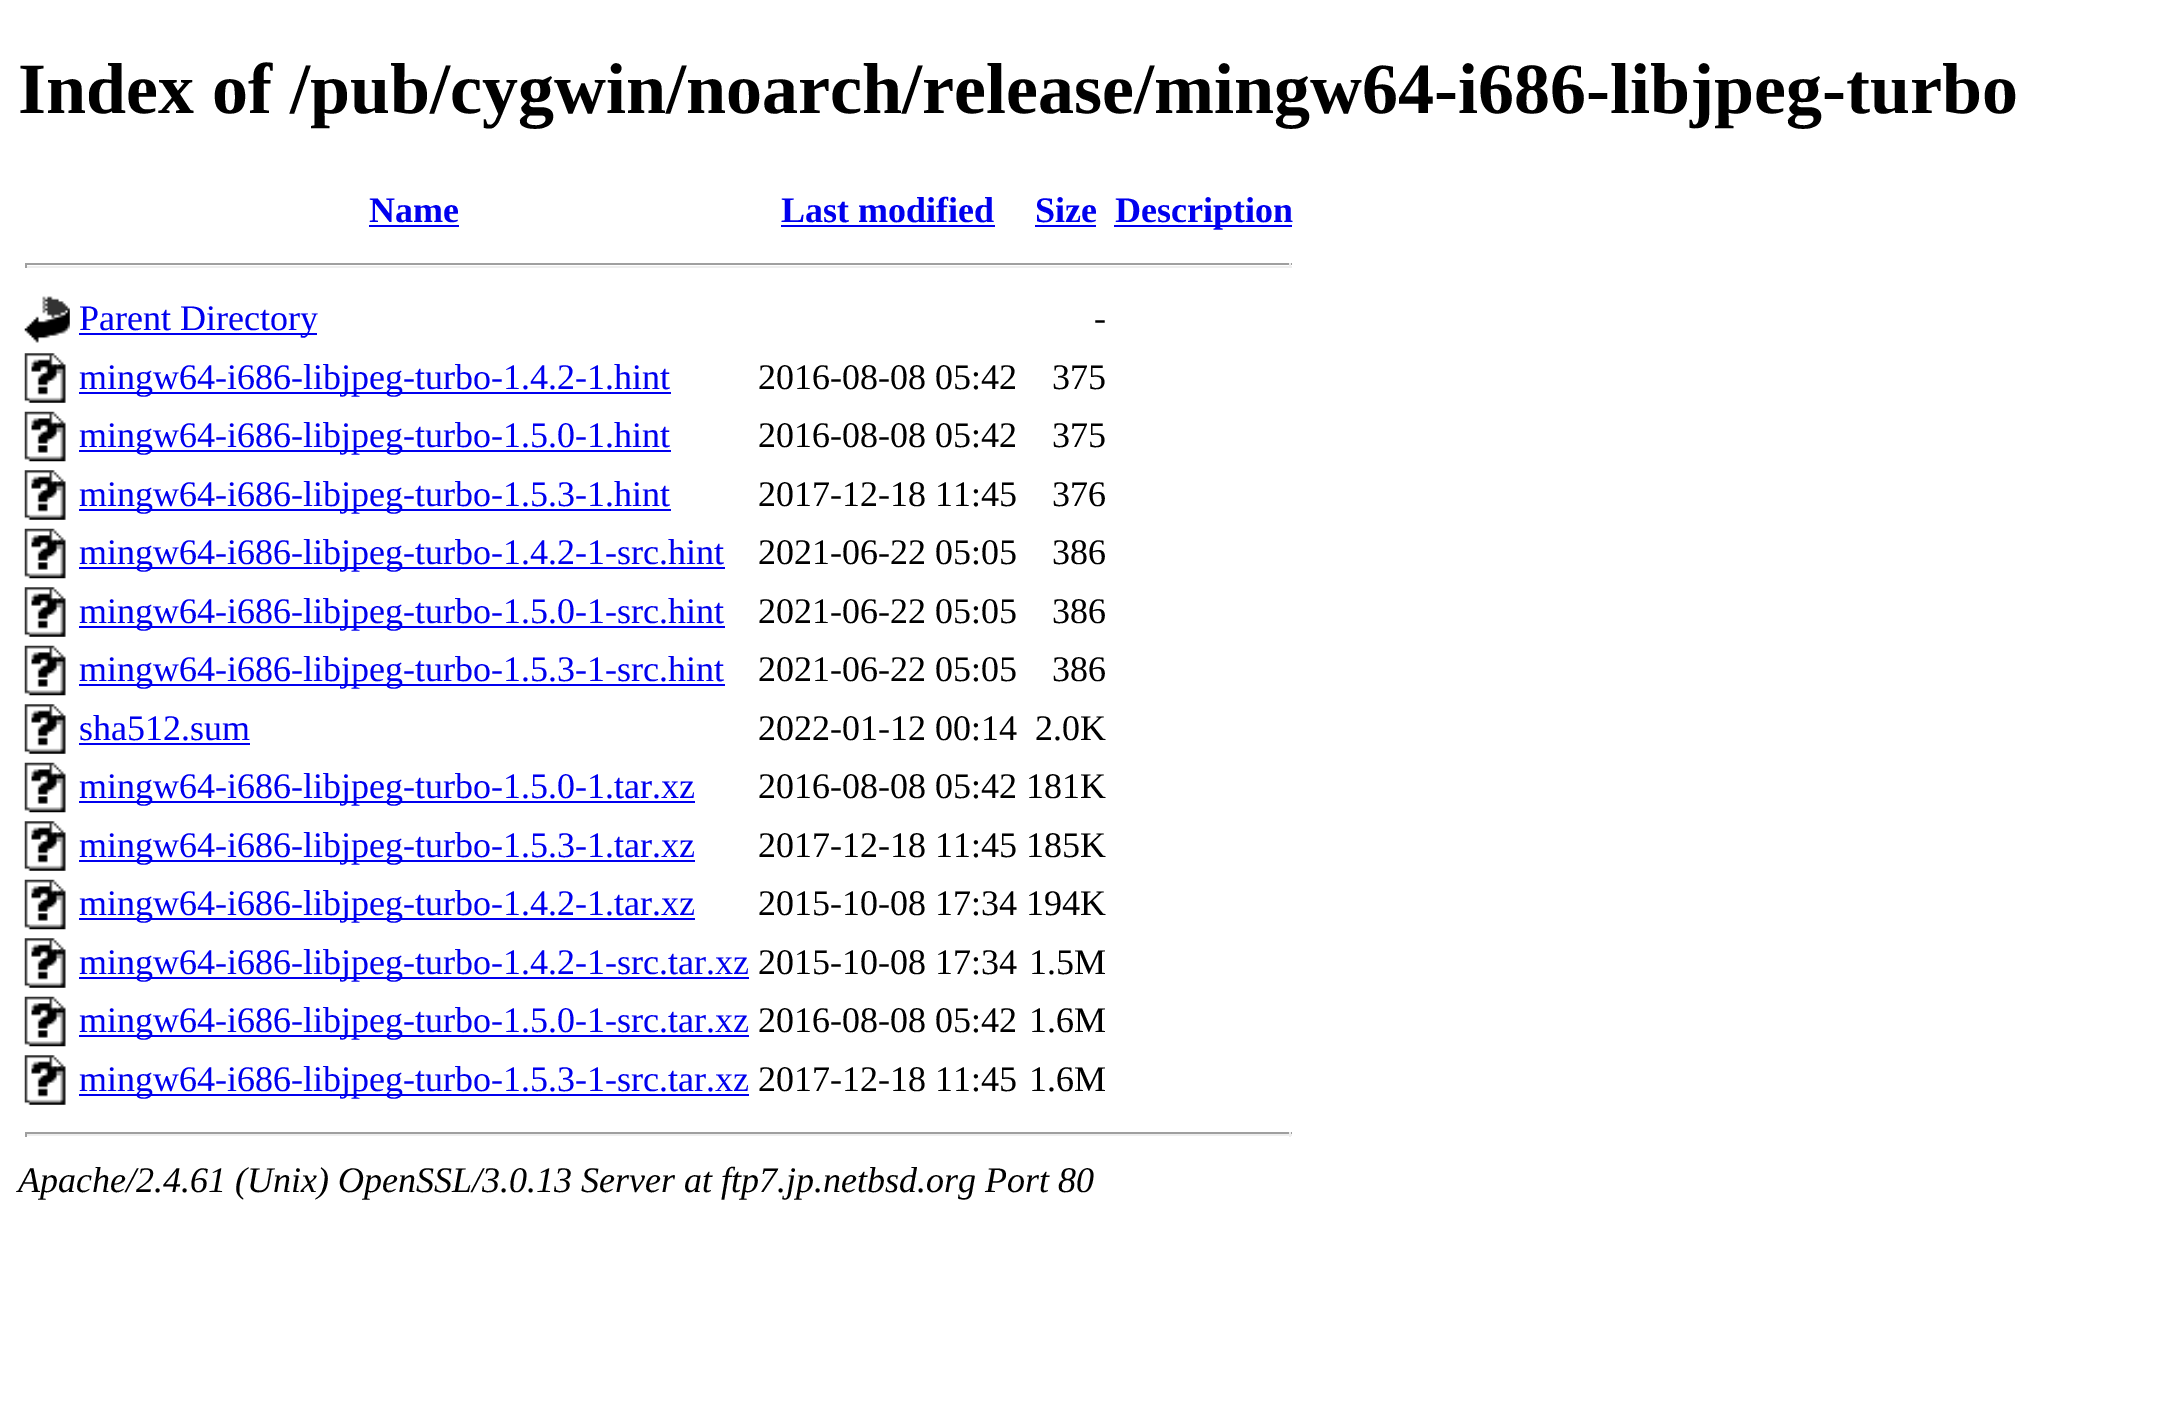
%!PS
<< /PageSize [2170 1410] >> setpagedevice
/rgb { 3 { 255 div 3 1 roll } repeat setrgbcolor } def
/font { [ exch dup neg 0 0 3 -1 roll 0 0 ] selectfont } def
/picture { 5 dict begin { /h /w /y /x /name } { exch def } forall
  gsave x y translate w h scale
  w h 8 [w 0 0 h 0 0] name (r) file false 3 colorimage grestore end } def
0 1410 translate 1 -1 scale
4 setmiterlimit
255 255 255 rgb
0 0 2170 1410 rectfill
[
  [369 225 90 2 0 0 238]
  [781 225 214 2 0 0 238]
  [1035 225 61 2 0 0 238]
  [1114 225 178 2 0 0 238]
  [25 263 1267 2 159 159 159]
  [1289 263 2 5 238 238 238]
  [25 266 1267 2 238 238 238]
  [25 263 2 5 159 159 159]
] { aload pop rgb rectfill } forall
(img/1.rgb) 24 296 46 47 picture
0 0 238 rgb
79 333 238 2 rectfill
(img/2.rgb) 24 353 42 50 picture
79 392 592 2 rectfill
(img/3.rgb) 24 411 42 51 picture
79 450 592 2 rectfill
(img/2.rgb) 24 470 42 50 picture
79 509 592 2 rectfill
(img/3.rgb) 24 528 42 51 picture
79 567 646 2 rectfill
(img/2.rgb) 24 587 42 50 picture
79 626 646 2 rectfill
(img/3.rgb) 24 645 42 51 picture
79 684 646 2 rectfill
(img/2.rgb) 24 704 42 50 picture
79 743 171 2 rectfill
(img/3.rgb) 24 762 42 51 picture
79 801 616 2 rectfill
(img/4.rgb) 24 821 42 50 picture
79 860 616 2 rectfill
(img/3.rgb) 24 879 42 51 picture
79 918 616 2 rectfill
(img/2.rgb) 24 938 42 50 picture
79 977 670 2 rectfill
(img/3.rgb) 24 996 42 51 picture
79 1035 670 2 rectfill
(img/2.rgb) 24 1055 42 50 picture
[
  [79 1094 670 2 0 0 238]
  [25 1132 1267 2 159 159 159]
  [1289 1132 2 5 238 238 238]
  [25 1134 1267 2 238 238 238]
  [25 1132 2 5 159 159 159]
] { aload pop rgb rectfill } forall
/LiberationSerif-Bold 72 font
0 0 0 rgb
18 113 moveto (Index of /pub/cygwin/noarch/release/mingw64-i686-libjpeg-turbo) show
/LiberationSerif-Bold 36 font
0 0 238 rgb
[
  [(Name) 369 222]
  [(Last modified) 781 222]
  [(Size) 1035 222]
  [(Description) 1115 222]
] { aload pop moveto show } forall
/LiberationSerif-Regular 36 font
79 330 moveto (Parent Directory) show
0 0 0 rgb
1094 330 moveto (-) show
0 0 238 rgb
79 389 moveto (mingw64-i686-libjpeg-turbo-1.4.2-1.hint) show
0 0 0 rgb
758 389 moveto (2016-08-08 05:42) show
1052 389 moveto (375) show
0 0 238 rgb
79 447 moveto (mingw64-i686-libjpeg-turbo-1.5.0-1.hint) show
0 0 0 rgb
758 447 moveto (2016-08-08 05:42) show
1052 447 moveto (375) show
0 0 238 rgb
79 506 moveto (mingw64-i686-libjpeg-turbo-1.5.3-1.hint) show
0 0 0 rgb
758 506 moveto (2017-12-18 11:45) show
1052 506 moveto (376) show
0 0 238 rgb
79 564 moveto (mingw64-i686-libjpeg-turbo-1.4.2-1-src.hint) show
0 0 0 rgb
758 564 moveto (2021-06-22 05:05) show
1052 564 moveto (386) show
0 0 238 rgb
79 623 moveto (mingw64-i686-libjpeg-turbo-1.5.0-1-src.hint) show
0 0 0 rgb
758 623 moveto (2021-06-22 05:05) show
1052 623 moveto (386) show
0 0 238 rgb
79 681 moveto (mingw64-i686-libjpeg-turbo-1.5.3-1-src.hint) show
0 0 0 rgb
758 681 moveto (2021-06-22 05:05) show
1052 681 moveto (386) show
0 0 238 rgb
79 740 moveto (sha512.sum) show
0 0 0 rgb
758 740 moveto (2022-01-12 00:14) show
1035 740 moveto (2.0K) show
0 0 238 rgb
79 798 moveto (mingw64-i686-libjpeg-turbo-1.5.0-1.tar.xz) show
0 0 0 rgb
758 798 moveto (2016-08-08 05:42 181K) show
0 0 238 rgb
79 857 moveto (mingw64-i686-libjpeg-turbo-1.5.3-1.tar.xz) show
0 0 0 rgb
758 857 moveto (2017-12-18 11:45 185K) show
0 0 238 rgb
79 915 moveto (mingw64-i686-libjpeg-turbo-1.4.2-1.tar.xz) show
0 0 0 rgb
758 915 moveto (2015-10-08 17:34 194K) show
0 0 238 rgb
79 974 moveto (mingw64-i686-libjpeg-turbo-1.4.2-1-src.tar.xz) show
0 0 0 rgb
758 974 moveto (2015-10-08 17:34) show
1029 974 moveto (1.5M) show
0 0 238 rgb
79 1032 moveto (mingw64-i686-libjpeg-turbo-1.5.0-1-src.tar.xz) show
0 0 0 rgb
758 1032 moveto (2016-08-08 05:42) show
1029 1032 moveto (1.6M) show
0 0 238 rgb
79 1091 moveto (mingw64-i686-libjpeg-turbo-1.5.3-1-src.tar.xz) show
0 0 0 rgb
758 1091 moveto (2017-12-18 11:45) show
1029 1091 moveto (1.6M) show
/LiberationSerif-Italic 36 font
18 1192 moveto (Apache/2.4.61 \(Unix\) OpenSSL/3.0.13 Server at ftp7.jp.netbsd.org Port 80) show
showpage
